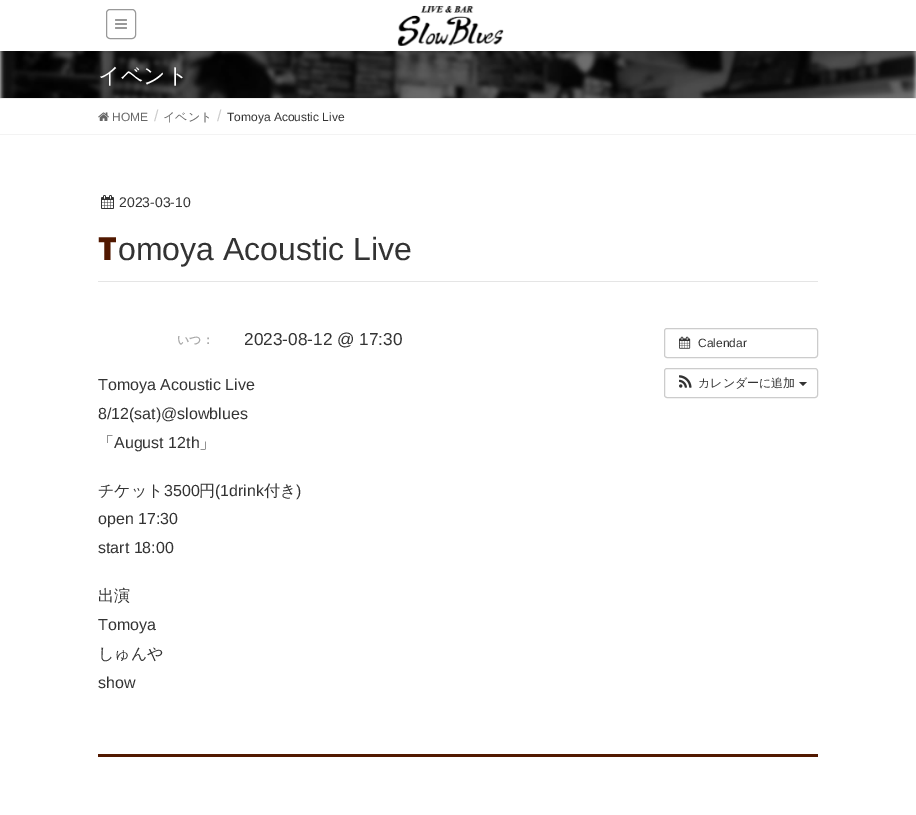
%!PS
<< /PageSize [916 815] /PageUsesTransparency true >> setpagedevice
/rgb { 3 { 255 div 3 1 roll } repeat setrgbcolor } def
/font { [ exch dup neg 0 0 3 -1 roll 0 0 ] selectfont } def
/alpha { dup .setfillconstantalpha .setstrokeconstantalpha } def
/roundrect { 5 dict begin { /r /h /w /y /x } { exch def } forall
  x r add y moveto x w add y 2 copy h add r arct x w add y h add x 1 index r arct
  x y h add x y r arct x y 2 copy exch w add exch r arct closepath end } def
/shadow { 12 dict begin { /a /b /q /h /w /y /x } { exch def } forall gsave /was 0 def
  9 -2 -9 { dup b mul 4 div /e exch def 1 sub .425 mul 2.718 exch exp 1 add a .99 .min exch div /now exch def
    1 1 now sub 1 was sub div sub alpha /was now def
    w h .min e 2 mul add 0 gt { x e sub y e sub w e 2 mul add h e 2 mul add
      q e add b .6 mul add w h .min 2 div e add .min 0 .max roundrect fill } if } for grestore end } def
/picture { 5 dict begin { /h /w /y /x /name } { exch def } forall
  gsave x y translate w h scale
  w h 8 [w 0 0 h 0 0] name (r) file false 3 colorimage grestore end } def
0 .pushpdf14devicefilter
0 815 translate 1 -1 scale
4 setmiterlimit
255 255 255 rgb
0 0 916 815 rectfill
(img/3.rgb) 0 51 916 47 picture
0 0 0 rgb
0 1 916 51 0 1.5 0.1 shadow
255 255 255 rgb
0 0 916 51 rectfill
153 153 153 rgb
106.5 9.5 29 29 3.5 roundrect stroke
(img/1.rgb) 115 19 12 10 picture
(img/2.rgb) 397 6 107 40 picture
238 238 238 rgb
0 98 916 1 rectfill
243 243 243 rgb
0 134 916 1 rectfill
(img/4.rgb) 98 112 11 9 picture
229 229 229 rgb
98 281 720 1 rectfill
(img/5.rgb) 101 195 13 14 picture
204 204 204 rgb
664.5 328.5 153 29 2.5 roundrect stroke
(img/6.rgb) 679 336 12 13 picture
664.5 368.5 153 29 2.5 roundrect stroke
(img/7.rgb) 679 375 13 13 picture
51 51 51 rgb
799 382 moveto 807 382 lineto 803 386 lineto closepath fill
81 24 0 rgb
98 754 720 3 rectfill
/WenQuanYiZenHei-Medium 22 font
255 255 255 rgb
98 83 moveto (イベント) show
/LiberationSans-Regular 12 font
102 102 102 rgb
112 121 moveto (HOME) show
/LiberationSans-Regular 16 font
204 204 204 rgb
154 121 moveto (/) show
/WenQuanYiZenHei-Medium 12 font
102 102 102 rgb
163 121 moveto (イベント) show
/LiberationSans-Regular 16 font
204 204 204 rgb
217 121 moveto (/) show
/LiberationSans-Regular 12 font
51 51 51 rgb
227 121 moveto (Tomoya Acoustic Live) show
/LiberationSans-Regular 14 font
119 207 moveto (2023-03-10) show
/NotoSans-Black 32 font
81 24 0 rgb
98 260 moveto (T) show
/LiberationSans-Regular 32 font
51 51 51 rgb
118 260 moveto (omoya Acoustic Live) show
/WenQuanYiZenHei-Bold 12 font
170 170 170 rgb
177 344 moveto (いつ：) show
/LiberationSans-Regular 17.25 font
51 51 51 rgb
244 345 moveto (2023-08-12 @ 17:30) show
/LiberationSans-Regular 12 font
698 347 moveto (Calendar) show
/WenQuanYiZenHei-Medium 12 font
698 387 moveto (カレンダーに追加) show
/LiberationSans-Regular 16 font
98 390 moveto (Tomoya Acoustic Live) show
98 419 moveto (8/12\(sat\)@slowblues) show
/WenQuanYiZenHei-Medium 16 font
98 448 moveto (「) show
/LiberationSans-Regular 16 font
114 448 moveto (August 12th) show
/WenQuanYiZenHei-Medium 16 font
199 448 moveto (」) show
98 496 moveto (チケット) show
/LiberationSans-Regular 16 font
164 496 moveto (3500) show
/WenQuanYiZenHei-Medium 16 font
199 496 moveto (円) show
/LiberationSans-Regular 16 font
215 496 moveto (\(1drink) show
/WenQuanYiZenHei-Medium 16 font
264 496 moveto (付き) show
/LiberationSans-Regular 16 font
[
  [(\)) 296 496]
  [(open 17:30) 98 524]
  [(start 18:00) 98 553]
] { aload pop moveto show } forall
/WenQuanYiZenHei-Medium 16 font
98 601 moveto (出演) show
/LiberationSans-Regular 16 font
98 630 moveto (Tomoya) show
/WenQuanYiZenHei-Medium 16 font
98 659 moveto (しゅんや) show
/LiberationSans-Regular 16 font
98 688 moveto (show) show
.poppdf14devicefilter showpage
